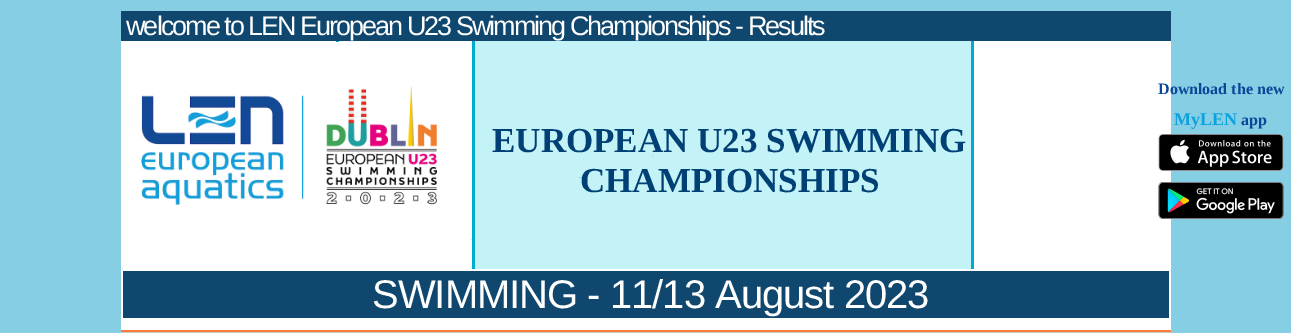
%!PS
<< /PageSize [1291 333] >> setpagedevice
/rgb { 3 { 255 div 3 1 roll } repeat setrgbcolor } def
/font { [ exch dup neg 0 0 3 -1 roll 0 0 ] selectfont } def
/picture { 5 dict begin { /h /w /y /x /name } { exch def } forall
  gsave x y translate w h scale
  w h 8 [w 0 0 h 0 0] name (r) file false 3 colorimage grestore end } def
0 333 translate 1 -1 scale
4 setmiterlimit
133 206 228 rgb
0 0 1291 333 rectfill
16 71 110 rgb
121 11 1050 30 rectfill
255 255 255 rgb
121 41 1050 289 rectfill
(img/1.rgb) 1158 134 126 37 picture
(img/2.rgb) 1158 182 126 37 picture
(img/3.rgb) 122 41 852 228 picture
(img/4.rgb) 141 78 296 127 picture
[
  [123 271 1046 47 16 71 110]
  [121 332 1050 1 200 200 200]
  [121 330 1050 2 249 124 57]
] { aload pop rgb rectfill } forall
/LiberationSans-Regular 27 font
255 255 255 rgb
126 35 moveto -2 0 (welcome to LEN European U23 Swimming Championships - Results) ashow
/LiberationSerif-Bold 16 font
10 71 152 rgb
1158 94 moveto (Download the new) show
/LiberationSerif-Bold 18 font
12 162 223 rgb
1174 125 moveto (MyLEN) show
/LiberationSerif-Bold 16 font
10 71 152 rgb
1241 125 moveto (app) show
/LiberationSerif-Bold 35 font
0 64 117 rgb
492 152 moveto (EUROPEAN U23 SWIMMING) show
580 192 moveto (CHAMPIONSHIPS) show
/LiberationSans-Regular 40 font
255 255 255 rgb
372 308 moveto -1 0 (SWIMMING - 11/13 August 2023) ashow
showpage
